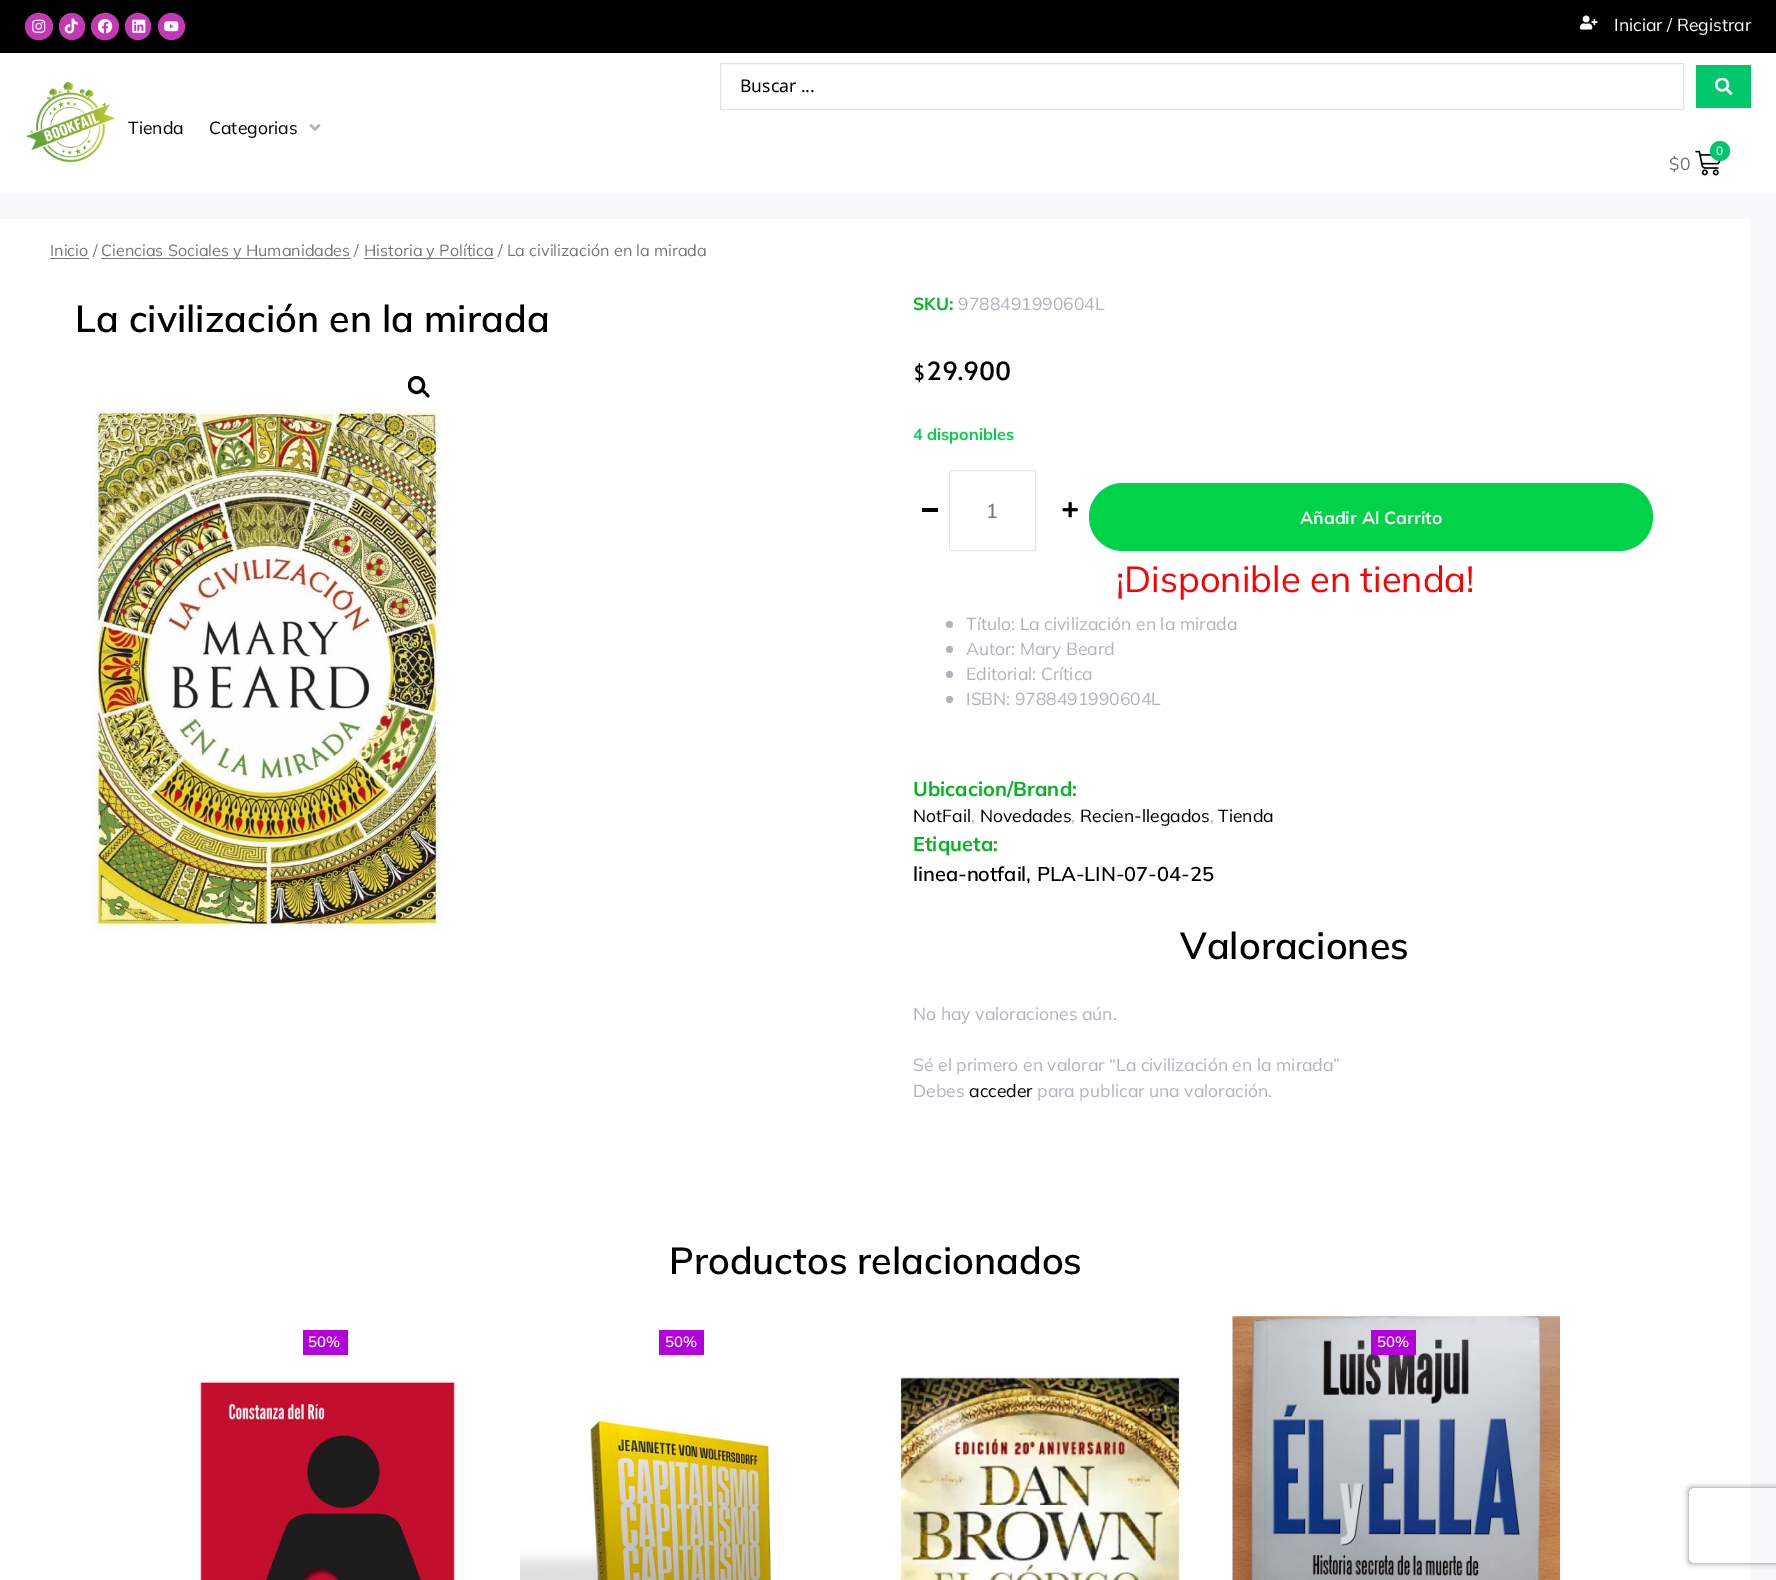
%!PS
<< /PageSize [1776 1580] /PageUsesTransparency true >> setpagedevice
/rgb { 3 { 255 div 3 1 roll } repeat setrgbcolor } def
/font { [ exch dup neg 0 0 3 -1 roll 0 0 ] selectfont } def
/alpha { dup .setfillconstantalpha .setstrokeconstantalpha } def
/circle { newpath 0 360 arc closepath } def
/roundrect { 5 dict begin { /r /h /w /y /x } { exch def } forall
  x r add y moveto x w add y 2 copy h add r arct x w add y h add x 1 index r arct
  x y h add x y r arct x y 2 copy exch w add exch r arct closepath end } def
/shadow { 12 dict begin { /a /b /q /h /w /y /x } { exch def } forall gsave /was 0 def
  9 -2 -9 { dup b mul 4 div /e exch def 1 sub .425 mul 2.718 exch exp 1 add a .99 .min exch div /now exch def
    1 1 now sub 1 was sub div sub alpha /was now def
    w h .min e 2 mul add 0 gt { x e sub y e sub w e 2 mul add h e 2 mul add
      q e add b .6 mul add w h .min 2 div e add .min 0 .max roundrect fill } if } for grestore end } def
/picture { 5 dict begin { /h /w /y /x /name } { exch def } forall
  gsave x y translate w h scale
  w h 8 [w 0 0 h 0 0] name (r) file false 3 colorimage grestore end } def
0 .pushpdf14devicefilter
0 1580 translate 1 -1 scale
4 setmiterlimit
247 248 249 rgb
0 0 1776 1580 rectfill
0 0 0 rgb
0 0 1776 53 rectfill
196 56 182 rgb
25 13 28 27 13.5 roundrect fill
(img/1.rgb) 32 19 14 14 picture
59 13 26 27 13 roundrect fill
(img/2.rgb) 64 18 14 16 picture
91 13 28 27 13.5 roundrect fill
(img/3.rgb) 98 19 15 15 picture
125 13 26 27 13 roundrect fill
(img/4.rgb) 132 19 14 14 picture
171.5 26.5 13.5 circle fill
(img/5.rgb) 164 21 15 11 picture
(img/6.rgb) 1580 15 18 15 picture
255 255 255 rgb
0 53 1776 141 rectfill
(img/7.rgb) 26 81 90 82 picture
(img/8.rgb) 309 124 12 7 picture
225 229 235 rgb
720.5 63.5 963 46 rectstroke
0 198 108 rgb
1696 65 55 43 rectfill
(img/9.rgb) 1715 78 18 17 picture
(img/10.rgb) 1695 150 26 26 picture
1720 151 10 circle fill
[
  [0 219 1751 1361 255 255 255]
  [50 258 39 1 118 118 118]
  [101 258 250 1 118 118 118]
  [364 258 130 1 118 118 118]
] { aload pop rgb rectfill } forall
(img/11.rgb) 90 408 354 524 picture
255 255 255 rgb
418.5 387.5 22.5 circle fill
0 0 0 rgb
3 setlinewidth
409.5 377.5 14 15 7 roundrect stroke
422 390 moveto 423.5 388.5 425.5 391.5 426.5 392.5 curveto 427 393 430.5 395.5 429 397 curveto 427.5 398.5 425.5 395 424.5 394 curveto 424 393.5 420.5 391 422 390 curveto closepath fill
922 508 16 4 rectfill
229 229 229 rgb
1 setlinewidth
949.5 470.5 86 80 0.5 roundrect stroke
(img/12.rgb) 1062 502 16 16 picture
0 211 71 rgb
1089 483 564 68 34 roundrect fill
178 178 190 rgb
949.5 624.5 3.5 circle fill
949.5 649.5 3.5 circle fill
949.5 674.5 3.5 circle fill
949.5 699.5 3.5 circle fill
179 0 220 rgb
303 1330 45 25 rectfill
(img/13.rgb) 198 1378 259 202 picture
659 1330 45 25 rectfill
(img/14.rgb) 520 1419 253 161 picture
(img/15.rgb) 1232 1316 328 264 picture
1371 1330 45 25 rectfill
(img/16.rgb) 897 1377 286 203 picture
gsave
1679 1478 moveto 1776 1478 lineto 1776 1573 lineto 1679 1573 lineto closepath 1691.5 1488 moveto 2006.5 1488 lineto 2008 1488 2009 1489 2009 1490.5 curveto 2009 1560.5 lineto 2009 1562 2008 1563 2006.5 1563 curveto 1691.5 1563 lineto 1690 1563 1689 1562 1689 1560.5 curveto 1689 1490.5 lineto 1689 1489 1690 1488 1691.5 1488 curveto closepath eoclip newpath
128 128 128 rgb
1689 1488 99 75 2.5 3 1 shadow
grestore
/Mulish-Regular 17.5 font
255 255 255 rgb
1614 31 moveto (Iniciar / Registrar) show
0 0 0 rgb
128 134 moveto (Tienda) show
209 134 moveto (Categorias) show
/NotoSans-Regular 17.5 font
740 92 moveto (Buscar ...) show
/Mulish-Regular 12 font
255 255 255 rgb
1716 155 moveto (0) show
/Mulish-Regular 17.5 font
105 114 125 rgb
1669 170 moveto ($0) show
/Mulish-Regular 16.1 font
118 118 118 rgb
[
  [(Inicio /) 50 256]
  [(Ciencias Sociales y Humanidades /) 101 256]
  [(Historia y Política / La civilización en la mirada) 364 256]
] { aload pop moveto show } forall
/Mulish-SemiBold 37.5 font
0 0 0 rgb
75 332 moveto (La civilización en la mirada) show
/Mulish-Bold 17.5 font
0 183 30 rgb
913 310 moveto (SKU:) show
/Mulish-Regular 17.5 font
178 178 190 rgb
958 310 moveto (9788491990604L) show
/Alata-Regular 20 font
0 0 0 rgb
913 380 moveto ($) show
/Alata-Regular 25 font
926 380 moveto (29.900) show
/Mulish-Bold 16.1 font
0 211 71 rgb
913 440 moveto (4 disponibles) show
/Muli-Medium 20 font
118 118 118 rgb
986 518 moveto (1) show
/Mulish-Bold 17.5 font
255 255 255 rgb
1300 524 moveto (Añadir Al Carrito) show
/Mulish-Regular 36.25 font
255 0 0 rgb
1116 592 moveto (¡Disponible en tienda!) show
/Mulish-Regular 17.5 font
178 178 190 rgb
[
  [(Título: La civilización en la mirada) 966 630]
  [(Autor: Mary Beard) 966 655]
  [(Editorial: Crítica) 966 680]
  [(ISBN: 9788491990604L) 966 705]
] { aload pop moveto show } forall
/Mulish-Bold 20 font
0 183 30 rgb
913 796 moveto (Ubicacion/Brand:) show
/Mulish-Regular 17.5 font
0 0 0 rgb
913 822 moveto (NotFail) show
178 178 190 rgb
971 822 moveto (,) show
0 0 0 rgb
980 822 moveto (Novedades) show
178 178 190 rgb
1071 822 moveto (,) show
0 0 0 rgb
1080 822 moveto (Recien-llegados) show
178 178 190 rgb
1210 822 moveto (,) show
0 0 0 rgb
1218 822 moveto (Tienda) show
/Mulish-Bold 20 font
0 183 30 rgb
913 851 moveto (Etiqueta:) show
/Mulish-SemiBold 20 font
0 0 0 rgb
913 881 moveto (linea-notfail, PLA-LIN-07-04-25) show
/Mulish-SemiBold 37.5 font
1180 959 moveto (Valoraciones) show
/Mulish-Regular 17.5 font
178 178 190 rgb
[
  [(No hay valoraciones aún.) 913 1020]
  [(Sé el primero en valorar “La civilización en la mirada”) 913 1071]
  [(Debes) 913 1097]
] { aload pop moveto show } forall
0 0 0 rgb
969 1097 moveto (acceder) show
178 178 190 rgb
1037 1097 moveto (para publicar una valoración.) show
/Mulish-SemiBold 37.5 font
0 0 0 rgb
669 1274 moveto (Productos relacionados) show
/Mulish-SemiBold 15 font
255 255 255 rgb
[
  [(50%) 308 1347]
  [(50%) 665 1347]
  [(50%) 1377 1347]
] { aload pop moveto show } forall
.poppdf14devicefilter showpage
